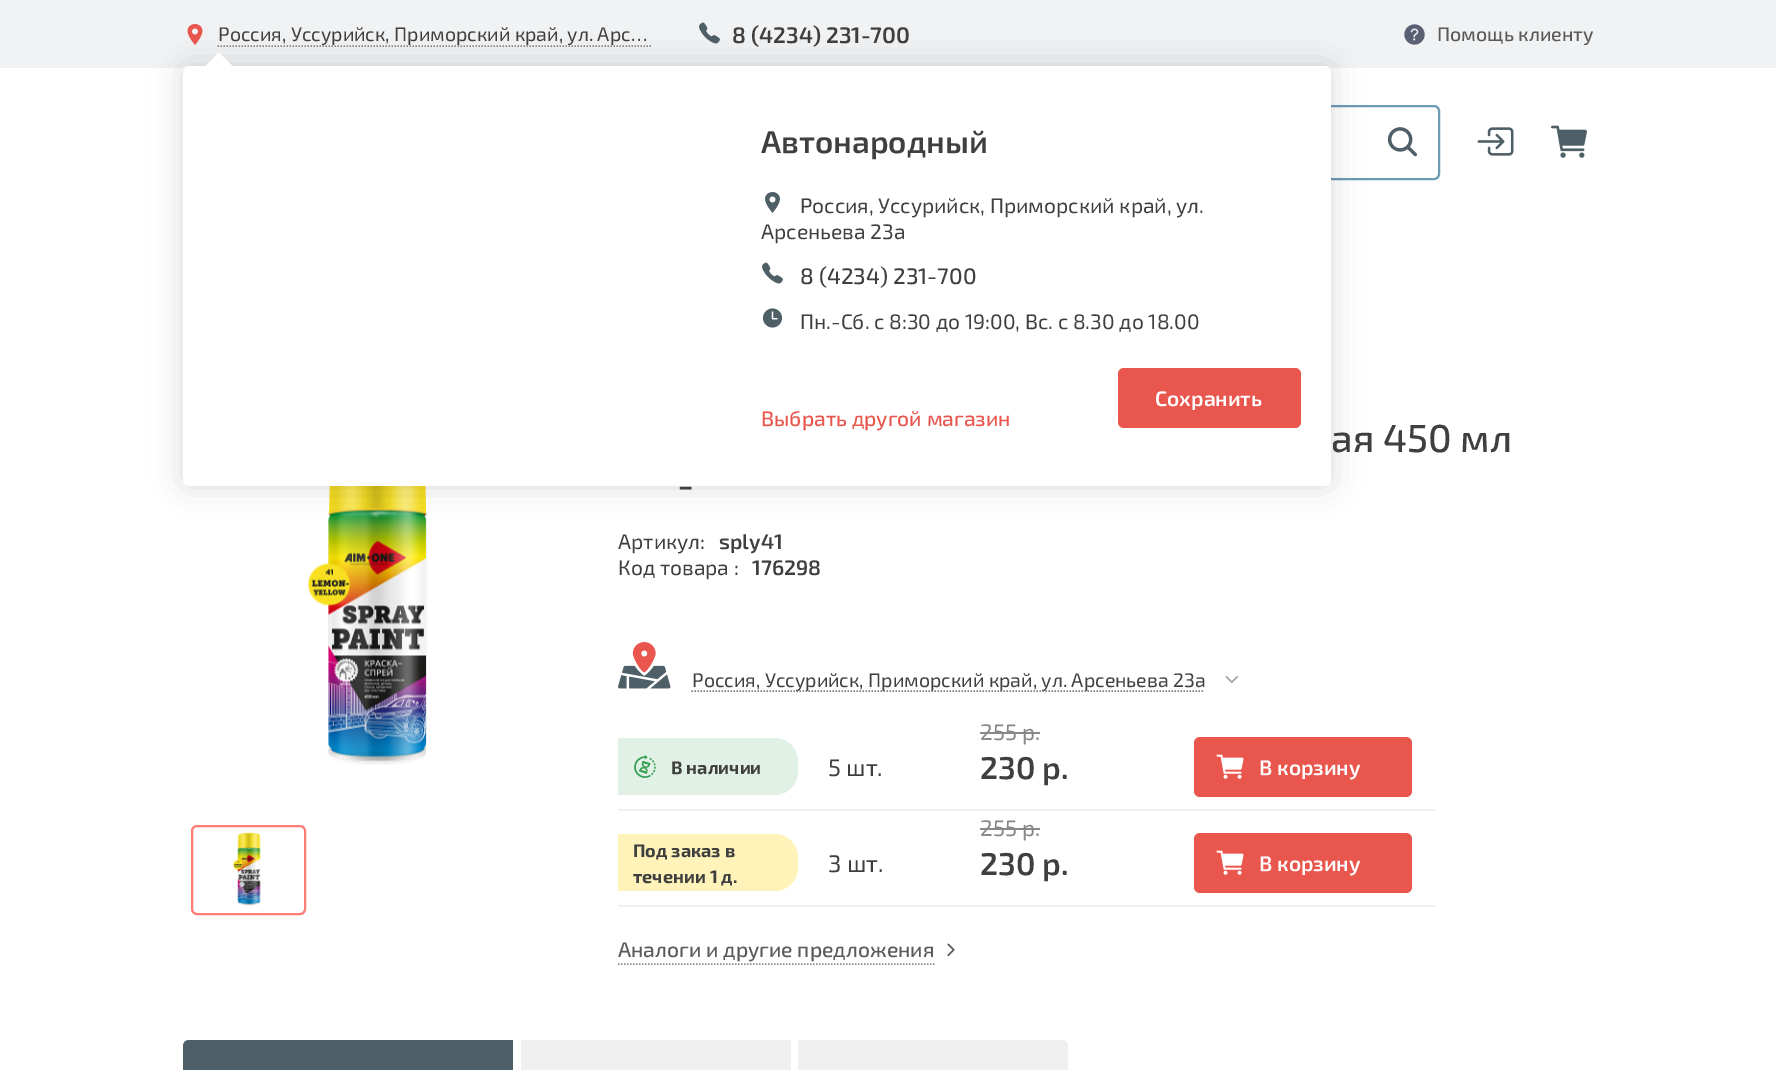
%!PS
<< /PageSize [1776 1070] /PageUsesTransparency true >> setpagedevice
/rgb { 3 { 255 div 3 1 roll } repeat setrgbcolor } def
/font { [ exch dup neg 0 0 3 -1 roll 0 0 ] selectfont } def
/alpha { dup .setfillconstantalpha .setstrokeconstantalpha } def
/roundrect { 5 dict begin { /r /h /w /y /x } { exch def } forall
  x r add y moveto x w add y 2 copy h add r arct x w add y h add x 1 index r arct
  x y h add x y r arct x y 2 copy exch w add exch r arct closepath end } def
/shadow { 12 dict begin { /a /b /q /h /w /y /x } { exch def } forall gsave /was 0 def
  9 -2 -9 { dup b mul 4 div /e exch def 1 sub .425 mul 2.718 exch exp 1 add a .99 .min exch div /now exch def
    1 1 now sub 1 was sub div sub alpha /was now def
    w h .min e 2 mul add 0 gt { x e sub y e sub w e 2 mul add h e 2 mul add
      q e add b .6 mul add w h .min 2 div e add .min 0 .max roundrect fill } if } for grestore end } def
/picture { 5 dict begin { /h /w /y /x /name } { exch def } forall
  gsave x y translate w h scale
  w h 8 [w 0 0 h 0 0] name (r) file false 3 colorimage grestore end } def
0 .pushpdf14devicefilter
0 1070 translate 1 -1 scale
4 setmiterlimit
255 255 255 rgb
0 0 1776 1070 rectfill
241 242 243 rgb
0 0 1776 68 rectfill
(img/1.rgb) 699 22 21 22 picture
(img/2.rgb) 187 24 16 21 picture
136 136 136 rgb
1.5 setlinewidth
[1.5 1.5] 0 setdash
217.5 46 moveto 652.5 46 lineto stroke
108 155 182 rgb
2 setlinewidth
[] 0 setdash
513 106 926 73 5 roundrect stroke
(img/10.rgb) 307 486 121 279 picture
0 0 0 rgb
183 66 1148 420 6 15 0.15 shadow
255 255 255 rgb
183 66 1148 420 6 roundrect fill
234 67.5 moveto 204 67.5 lineto 219 52.5 lineto closepath fill
(img/3.rgb) 765 192 15 21 picture
(img/4.rgb) 762 262 21 22 picture
(img/5.rgb) 762 308 21 20 picture
232 86 77 rgb
1118 368 183 60 6 roundrect fill
(img/6.rgb) 1404 24 21 21 picture
(img/7.rgb) 1387 127 30 30 picture
(img/8.rgb) 1477 127 37 29 picture
(img/9.rgb) 1551 125 36 33 picture
255 125 117 rgb
192 826 113 88 5 roundrect stroke
(img/11.rgb) 232 832 29 74 picture
(img/12.rgb) 618 642 53 47 picture
(img/13.rgb) 1225 676 13 7 picture
240 240 240 rgb
618 809 818 2 rectfill
225 241 229 rgb
618 738 moveto 775 738 lineto 787.5 738 798 748.5 798 761 curveto 798 772 lineto 798 784.5 787.5 795 775 795 curveto 618 795 lineto closepath fill
(img/14.rgb) 634 755 22 23 picture
136 136 136 rgb
980 732 60 2 rectfill
232 86 77 rgb
1194 737 218 60 6 roundrect fill
(img/15.rgb) 1216 754 28 25 picture
240 240 240 rgb
618 905 818 2 rectfill
255 243 185 rgb
618 834 moveto 775 834 lineto 787.5 834 798 844.5 798 857 curveto 798 868 lineto 798 880.5 787.5 891 775 891 curveto 618 891 lineto closepath fill
136 136 136 rgb
980 828 60 2 rectfill
232 86 77 rgb
1194 833 218 60 6 roundrect fill
(img/15.rgb) 1216 850 28 25 picture
136 136 136 rgb
1.5 setlinewidth
[1.5 1.5] 0 setdash
618 964 moveto 934.5 964 lineto stroke
(img/16.rgb) 947 943 8 14 picture
79 95 103 rgb
189 1040 moveto 513 1040 lineto 513 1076 lineto 189 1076 lineto 185.5 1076 183 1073.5 183 1070 curveto 183 1046 lineto 183 1042.5 185.5 1040 189 1040 curveto closepath fill
240 240 240 rgb
521 1040 270 30 rectfill
798 1040 moveto 1062 1040 lineto 1065.5 1040 1068 1042.5 1068 1046 curveto 1068 1070 lineto 1068 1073.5 1065.5 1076 1062 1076 curveto 798 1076 lineto closepath fill
/Exo2-SemiBold 22.5 font
63 63 63 rgb
732 43 moveto (8 \(4234\) 231-700) show
/Exo2-Regular 19.5 font
218 41 moveto (Россия, Уссурийск, Приморский край, ул. Арс…) show
/Exo2-SemiBold 31.5 font
761 153 moveto (Автонародный) show
/Exo2-Regular 21 font
800 213 moveto (Россия, Уссурийск, Приморский край, ул.) show
761 239 moveto (Арсеньева 23а) show
/Exo2-Medium 22.5 font
800 284 moveto (8 \(4234\) 231-700) show
/Exo2-Regular 21 font
800 329 moveto (Пн.-Сб. с 8:30 до 19:00, Вс. с 8.30 до 18.00) show
/Exo2-SemiBold 21 font
255 255 255 rgb
1155 406 moveto (Сохранить) show
/Exo2-Medium 21 font
232 86 77 rgb
761 426 moveto (Выбрать другой магазин) show
/Exo2-Medium 19.5 font
90 90 90 rgb
1437 41 moveto (Помощь клиенту) show
/Exo2-Medium 39 font
63 63 63 rgb
1331 452 moveto (ая 450 мл) show
677 498 moveto (-) show
/Exo2-Regular 21 font
618 549 moveto (Артикул:) show
/Exo2-SemiBold 21 font
719 549 moveto (sply41) show
/Exo2-Regular 21 font
618 575 moveto (Код товара :) show
/Exo2-SemiBold 21 font
752 575 moveto (176298) show
/Exo2-Regular 19.5 font
692 687 moveto (Россия, Уссурийск, Приморский край, ул. Арсеньева 23а) show
123 123 123 rgb
691.5 691 moveto 1204.5 691 lineto stroke
/Exo2-Bold 18 font
63 63 63 rgb
671 774 moveto (В наличии) show
/Exo2-Regular 24 font
828 776 moveto (5 шт.) show
/Exo2-Regular 22.5 font
136 136 136 rgb
980 740 moveto (255 р.) show
/Exo2-SemiBold 31.5 font
63 63 63 rgb
980 779 moveto (230 р.) show
/Exo2-SemiBold 21 font
255 255 255 rgb
1259 775 moveto (В корзину) show
/Exo2-Bold 18 font
63 63 63 rgb
633 857 moveto (Под заказ в) show
633 883 moveto (течении 1 д.) show
/Exo2-Regular 24 font
828 872 moveto (3 шт.) show
/Exo2-Regular 22.5 font
136 136 136 rgb
980 836 moveto (255 р.) show
/Exo2-SemiBold 31.5 font
63 63 63 rgb
980 875 moveto (230 р.) show
/Exo2-SemiBold 21 font
255 255 255 rgb
1259 871 moveto (В корзину) show
/Exo2-Medium 21 font
90 90 90 rgb
618 957 moveto (Аналоги и другие предложения) show
.poppdf14devicefilter showpage
